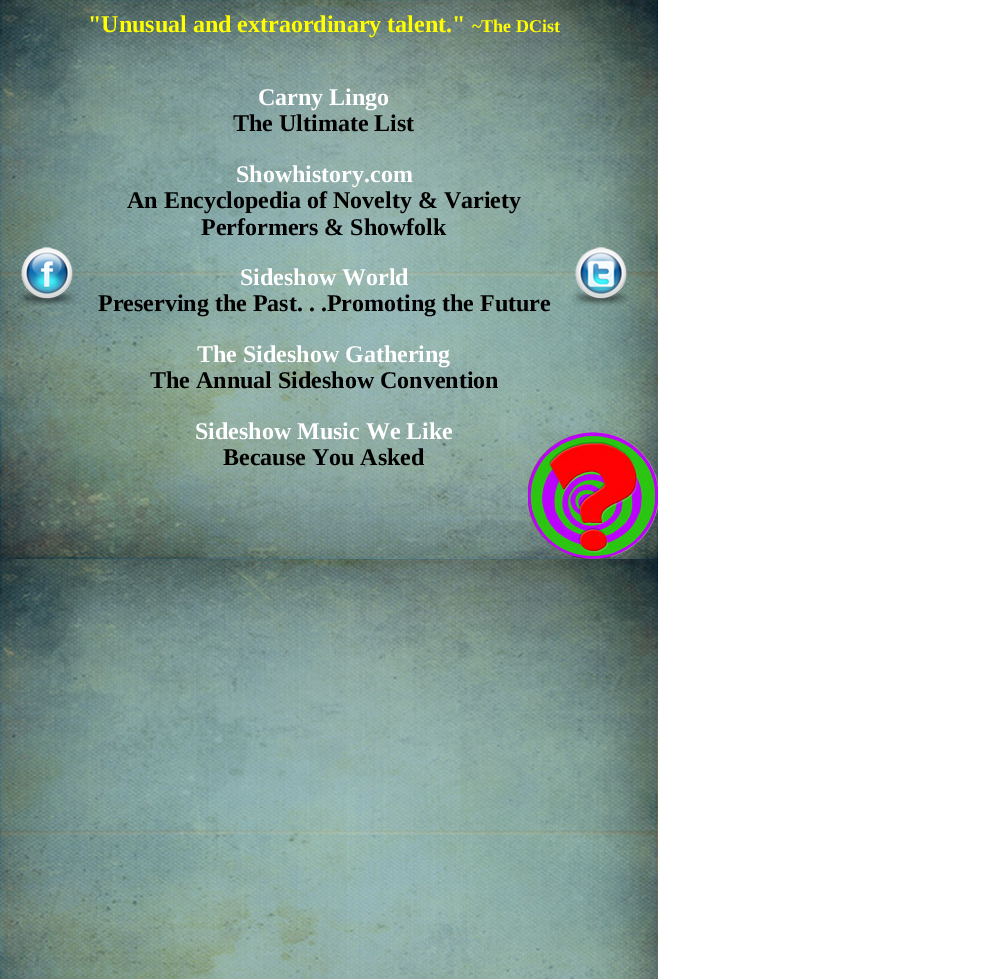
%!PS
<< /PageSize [997 979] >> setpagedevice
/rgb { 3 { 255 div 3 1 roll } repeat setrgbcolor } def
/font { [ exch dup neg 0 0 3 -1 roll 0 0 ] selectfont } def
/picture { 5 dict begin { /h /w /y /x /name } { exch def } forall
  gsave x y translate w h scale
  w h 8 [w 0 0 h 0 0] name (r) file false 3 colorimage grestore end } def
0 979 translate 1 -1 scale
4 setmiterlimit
255 255 255 rgb
0 0 997 979 rectfill
(img/1.rgb) 0 0 658 979 picture
(img/2.rgb) 17 247 60 59 picture
(img/3.rgb) 571 247 59 59 picture
/LiberationSerif-Bold 24 font
255 255 0 rgb
88 32 moveto ("Unusual and extraordinary talent.") show
/LiberationSerif-Bold 18 font
472 32 moveto (~The DCist) show
/LiberationSerif-Bold 24 font
255 255 255 rgb
258 105 moveto (Carny Lingo) show
0 0 0 rgb
233 131 moveto (The Ultimate List) show
255 255 255 rgb
236 182 moveto (Showhistory.com) show
0 0 0 rgb
127 208 moveto (An Encyclopedia of Novelty & Variety) show
201 235 moveto (Performers & Showfolk) show
255 255 255 rgb
240 285 moveto (Sideshow World) show
0 0 0 rgb
98 311 moveto (Preserving the Past. . .Promoting the Future) show
255 255 255 rgb
197 362 moveto (The Sideshow Gathering) show
0 0 0 rgb
150 388 moveto (The Annual Sideshow Convention) show
255 255 255 rgb
195 439 moveto (Sideshow Music We Like) show
0 0 0 rgb
223 465 moveto (Because You Asked) show
showpage
